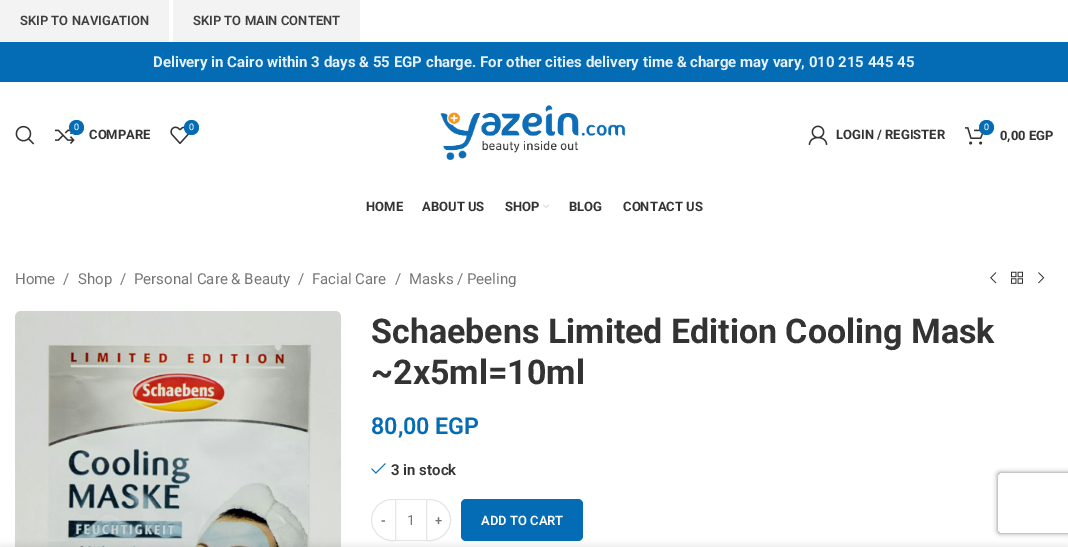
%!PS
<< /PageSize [1068 547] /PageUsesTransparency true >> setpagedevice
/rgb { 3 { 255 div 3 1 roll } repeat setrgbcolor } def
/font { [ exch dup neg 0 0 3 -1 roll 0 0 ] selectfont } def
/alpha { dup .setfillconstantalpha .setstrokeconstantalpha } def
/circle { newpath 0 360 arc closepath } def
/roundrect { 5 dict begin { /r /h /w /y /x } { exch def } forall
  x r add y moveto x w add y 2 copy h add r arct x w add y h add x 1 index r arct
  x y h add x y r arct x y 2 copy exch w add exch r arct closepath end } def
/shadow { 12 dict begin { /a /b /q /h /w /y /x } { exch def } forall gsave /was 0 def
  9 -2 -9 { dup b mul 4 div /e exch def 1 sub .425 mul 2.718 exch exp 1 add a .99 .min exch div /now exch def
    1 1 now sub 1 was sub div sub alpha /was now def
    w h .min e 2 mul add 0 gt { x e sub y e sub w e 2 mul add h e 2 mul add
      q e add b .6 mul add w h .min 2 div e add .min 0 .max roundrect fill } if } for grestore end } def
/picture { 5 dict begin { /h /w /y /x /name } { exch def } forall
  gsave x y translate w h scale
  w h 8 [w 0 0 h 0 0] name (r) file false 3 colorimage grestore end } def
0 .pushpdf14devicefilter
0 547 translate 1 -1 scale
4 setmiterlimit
255 255 255 rgb
0 0 1068 547 rectfill
[
  [0 0 169 42 243 243 243]
  [173 0 187 42 243 243 243]
  [0 42 1068 40 4 108 181]
] { aload pop rgb rectfill } forall
(img/1.rgb) 15 125 20 20 picture
(img/2.rgb) 55 129 20 15 picture
76.5 127.5 7.5 circle fill
(img/3.rgb) 170 126 20 18 picture
191.5 127.5 7.5 circle fill
(img/4.rgb) 440 105 186 55 picture
(img/5.rgb) 808 125 20 20 picture
(img/6.rgb) 965 127 19 18 picture
986.5 127.5 7.5 circle fill
(img/7.rgb) 543 204 6 4 picture
(img/8.rgb) 990 272 7 12 picture
(img/9.rgb) 1011 271 12 13 picture
(img/10.rgb) 1038 272 7 12 picture
(img/11.rgb) 15 311 326 236 picture
(img/12.rgb) 371 463 15 11 picture
230 230 230 rgb
392 499.5 moveto 395.5 499.5 lineto 395.5 540.5 lineto 392 540.5 lineto 380.5 540.5 371.5 531.5 371.5 520 curveto 371.5 508.5 380.5 499.5 392 499.5 curveto closepath stroke
396 499 30 1 rectfill
396 540 30 1 rectfill
426.5 499.5 moveto 430 499.5 lineto 441.5 499.5 450.5 508.5 450.5 520 curveto 450.5 531.5 441.5 540.5 430 540.5 curveto 426.5 540.5 lineto closepath stroke
4 108 181 rgb
461 499 122 42 5 roundrect fill
gsave
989 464 moveto 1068 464 lineto 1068 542 lineto 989 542 lineto closepath 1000 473 moveto 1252 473 lineto 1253 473 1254 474 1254 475 curveto 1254 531 lineto 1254 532 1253 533 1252 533 curveto 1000 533 lineto 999 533 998 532 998 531 curveto 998 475 lineto 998 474 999 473 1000 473 curveto closepath eoclip newpath
128 128 128 rgb
998 473 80 60 2 2.5 1 shadow
grestore
0 0 0 rgb
0 547 1068 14 0 4.5 0.12 shadow
/Roboto-SemiBold 13 font
62 62 62 rgb
20 25 moveto (SKIP TO NAVIGATION) show
193 25 moveto (SKIP TO MAIN CONTENT) show
/Roboto-Bold 15 font
230 240 248 rgb
153 67 moveto (Delivery in Cairo within 3 days & 55 EGP charge. For other cities delivery time & charge may vary, 010 215 445 45) show
/Roboto-Regular 9 font
255 255 255 rgb
74 130 moveto (0) show
/Roboto-Bold 13 font
51 51 51 rgb
89 139 moveto (COMPARE) show
/Roboto-Regular 9 font
255 255 255 rgb
189 130 moveto (0) show
/Roboto-Bold 13 font
51 51 51 rgb
836 139 moveto (LOGIN / REGISTER) show
/Roboto-Regular 9 font
255 255 255 rgb
984 130 moveto (0) show
/Roboto-Bold 13 font
51 51 51 rgb
[
  [(0,00 EGP) 1000 140]
  [(HOME) 366 211]
  [(ABOUT US) 422 211]
  [(SHOP) 505 211]
  [(BLOG) 569 211]
  [(CONTACT US) 623 211]
] { aload pop moveto show } forall
/Roboto-Regular 15 font
118 118 118 rgb
[
  [(Home) 15 284]
  [(/) 63 284]
  [(Shop) 78 284]
  [(/) 120 284]
  [(Personal Care & Beauty) 134 284]
  [(/) 298 284]
  [(Facial Care) 312 284]
  [(/) 395 284]
  [(Masks / Peeling) 409 284]
] { aload pop moveto show } forall
/Roboto-Bold 34 font
51 51 51 rgb
371 343 moveto (Schaebens Limited Edition Cooling Mask) show
371 384 moveto (~2x5ml=10ml) show
/Roboto-SemiBold 23.25 font
4 108 181 rgb
371 434 moveto (80,00 EGP) show
/Roboto-SemiBold 15 font
51 51 51 rgb
391 475 moveto (3 in stock) show
/Roboto-SemiBold 13 font
118 118 118 rgb
381 525 moveto (-) show
/Roboto-Regular 14 font
407 525 moveto (1) show
/Roboto-SemiBold 13 font
435 525 moveto (+) show
255 255 255 rgb
481 525 moveto (ADD TO CART) show
.poppdf14devicefilter showpage
